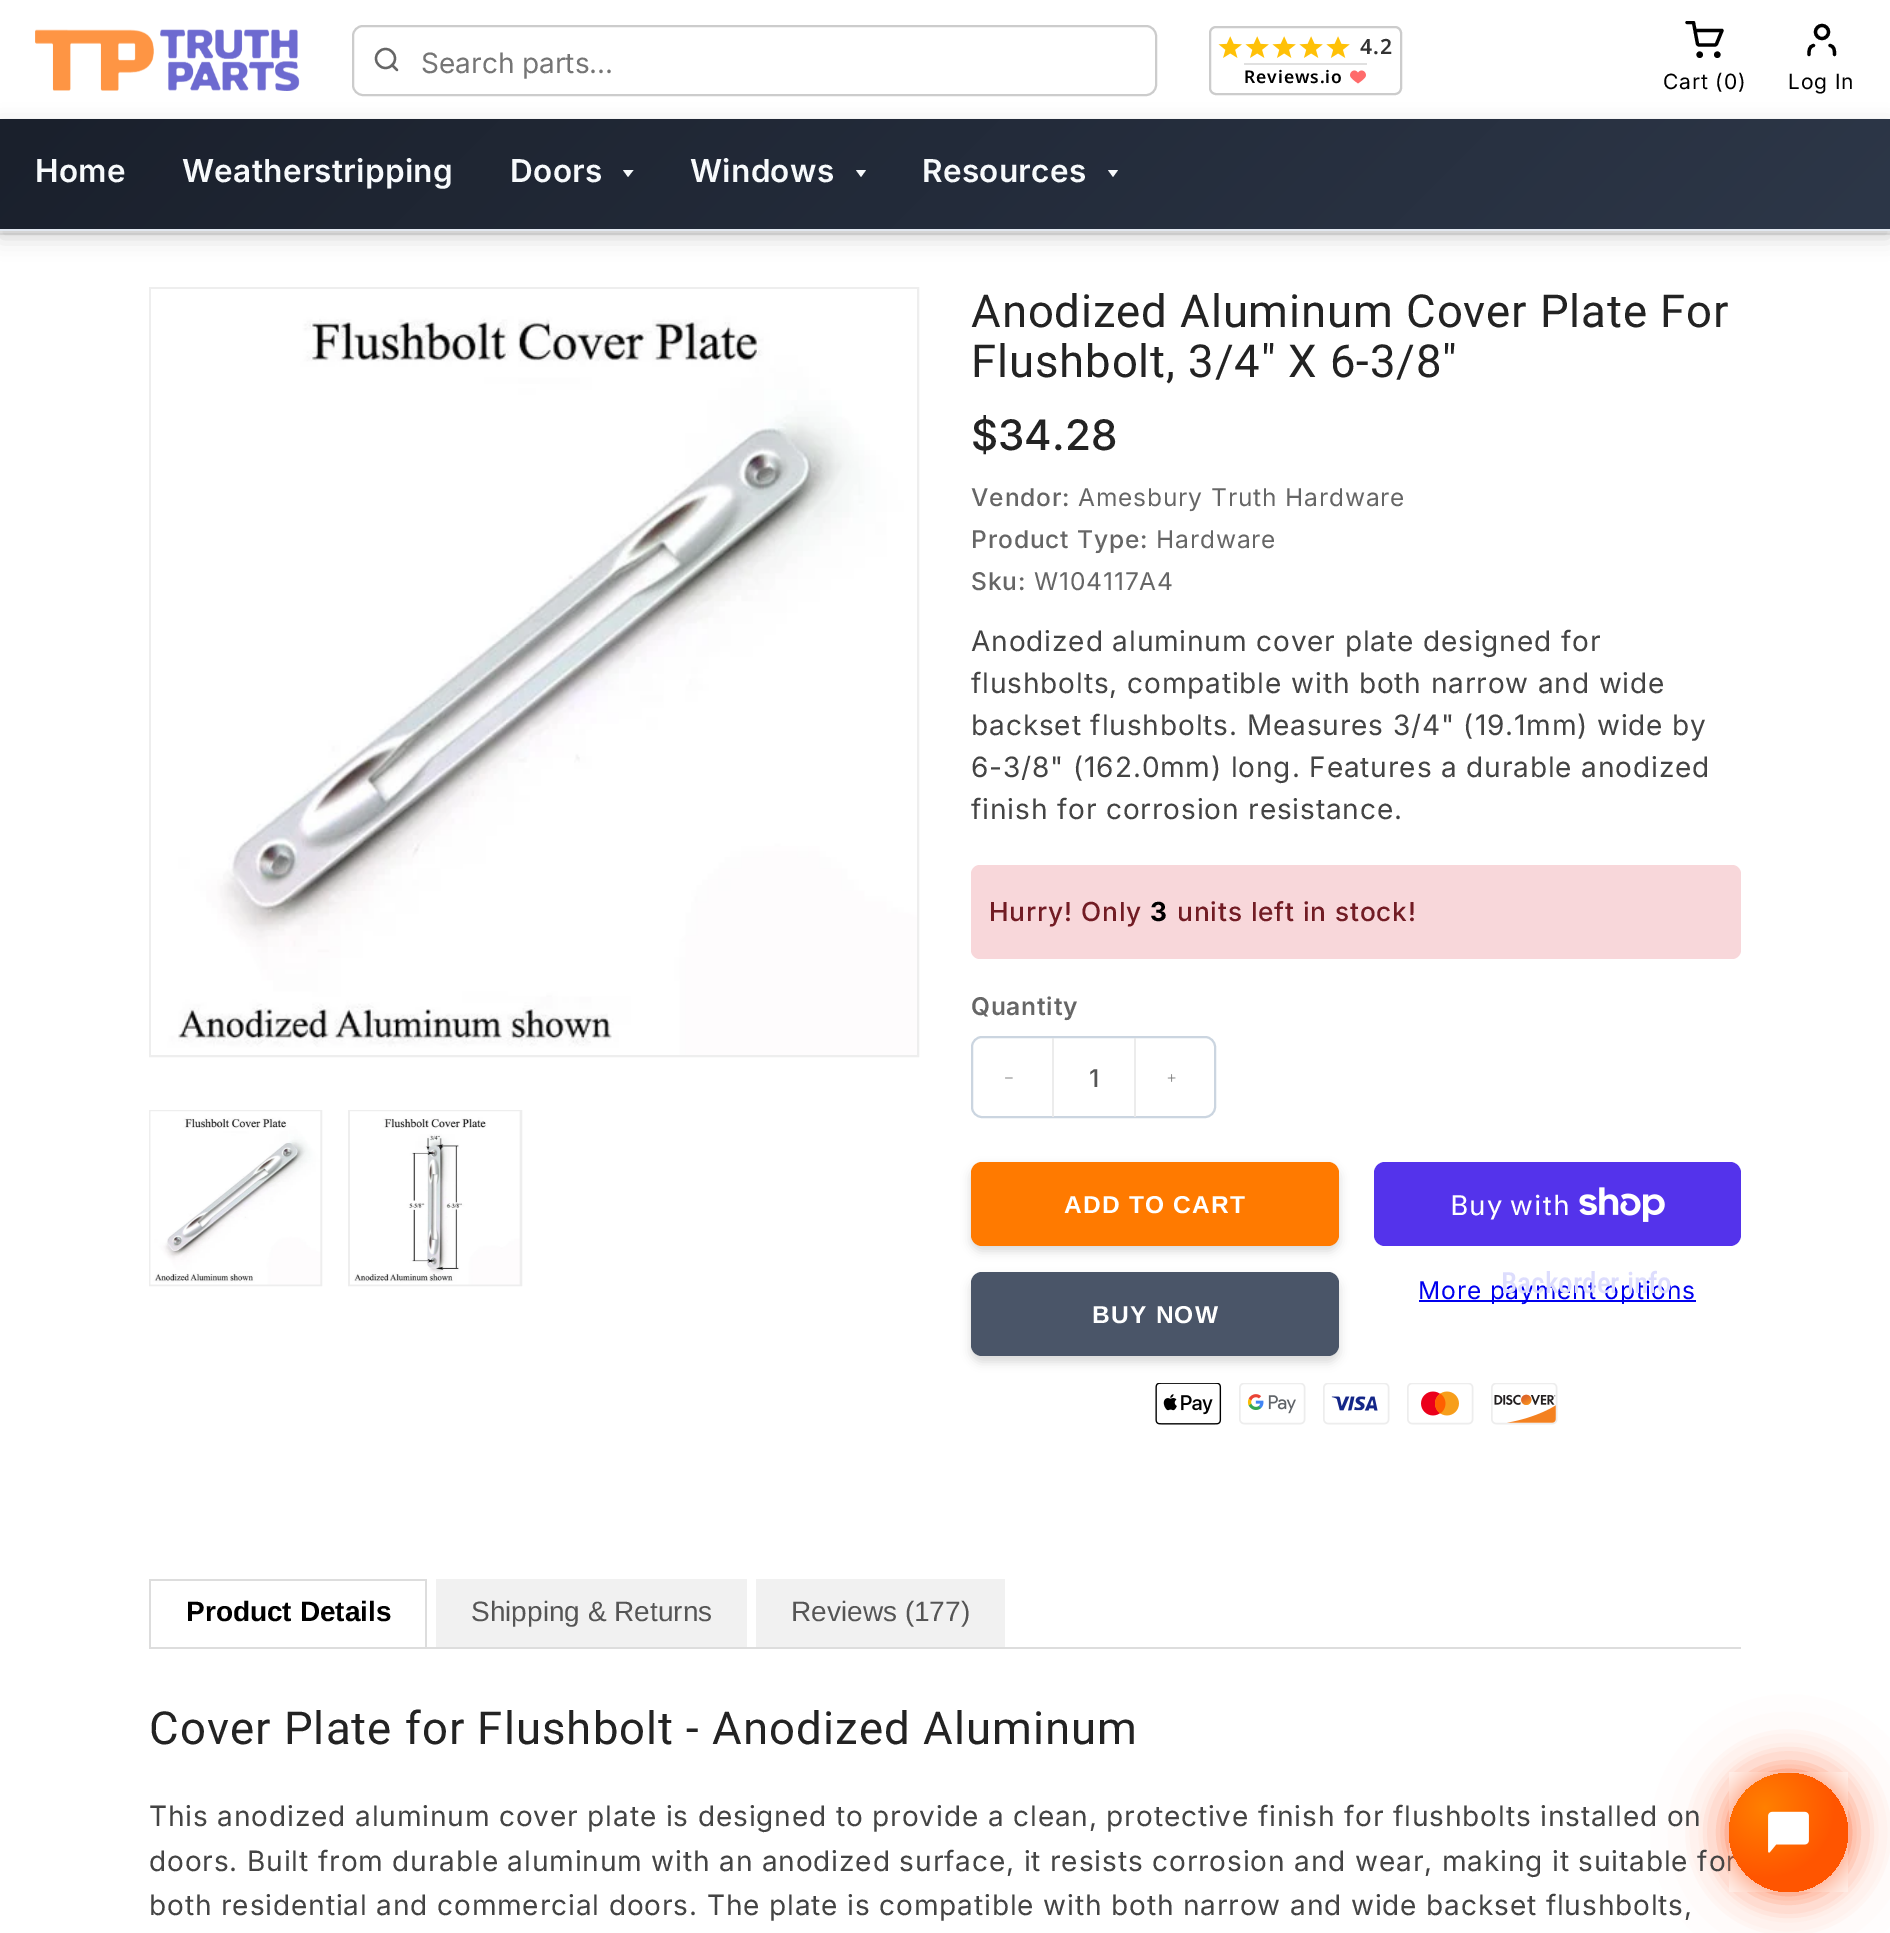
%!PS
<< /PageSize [1890 1933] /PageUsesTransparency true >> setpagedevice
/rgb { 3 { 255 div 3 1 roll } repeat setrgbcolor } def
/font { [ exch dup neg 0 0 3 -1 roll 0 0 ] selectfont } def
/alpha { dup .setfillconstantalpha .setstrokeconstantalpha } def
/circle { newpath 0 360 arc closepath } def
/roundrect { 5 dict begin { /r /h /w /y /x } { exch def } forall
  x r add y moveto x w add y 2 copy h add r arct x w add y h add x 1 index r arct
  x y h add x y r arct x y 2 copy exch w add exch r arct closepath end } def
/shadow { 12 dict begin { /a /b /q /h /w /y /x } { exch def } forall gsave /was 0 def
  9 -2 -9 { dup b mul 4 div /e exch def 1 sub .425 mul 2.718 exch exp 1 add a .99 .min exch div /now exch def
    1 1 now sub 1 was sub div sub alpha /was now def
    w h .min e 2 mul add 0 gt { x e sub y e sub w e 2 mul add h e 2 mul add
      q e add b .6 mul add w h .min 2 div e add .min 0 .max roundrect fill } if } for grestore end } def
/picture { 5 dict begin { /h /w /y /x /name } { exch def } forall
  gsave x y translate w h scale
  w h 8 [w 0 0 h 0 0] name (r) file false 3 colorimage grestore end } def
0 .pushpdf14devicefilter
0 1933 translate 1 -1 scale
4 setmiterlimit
255 255 255 rgb
0 0 1890 1933 rectfill
238 238 238 rgb
0 233 1890 2 rectfill
0 0 0 rgb
0 2 1890 233 0 2.5 0.05 shadow
255 255 255 rgb
0 0 1890 119 rectfill
238 238 238 rgb
0 231 1890 2 rectfill
(img/1.rgb) 35 29 265 62 picture
0 0 0 rgb
0 126 1890 112 0 10.5 0.15 shadow
204 204 204 rgb
2 setlinewidth
353 26 803 69 10 roundrect stroke
102 102 102 rgb
2.3 setlinewidth
385.5 58.5 9.5 circle stroke
1 setlinecap
1 setlinejoin
397 70 moveto 392 65 lineto stroke
204 204 204 rgb
2 setlinewidth
0 setlinecap
0 setlinejoin
1210 27 191 67 6 roundrect stroke
(img/2.rgb) 1218 36 132 22 picture
224 224 224 rgb
1244 63 123 2 rectfill
(img/3.rgb) 1350 70 16 14 picture
0 0 0 rgb
3.2 setlinewidth
1699.7 54.7 1.6 circle stroke
1717.3 54.7 1.6 circle stroke
gsave
1685 21 39 39 rectclip
1 setlinecap
1 setlinejoin
1687 22.5 moveto 1693.5 22.5 lineto 1697.5 44 lineto 1698 44.5 1698.5 45 1699 45 curveto 1715 45 lineto 1715.5 45 1716 44.5 1716.5 44 curveto 1722 30.5 lineto 1695 30.5 lineto stroke
grestore
1822 32 6.5 circle stroke
1 setlinecap
1 setlinejoin
1834.5 54.5 moveto 1834.5 50.5 1834.5 46.5 1830 45.5 curveto 1809 54.5 moveto 1809 50.5 1809 46.5 1813.5 45.5 curveto stroke
gsave 0 119 moveto 1890 119 lineto 1890 229 lineto 0 229 lineto closepath clip newpath
<< /ShadingType 2 /ColorSpace /DeviceRGB /Coords [445 -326 1445 674] /Extend [true true] /Function << /FunctionType 2 /Domain [0 1] /C0 [0.102 0.125 0.173] /C1 [0.176 0.216 0.282] /N 1 >> >> shfill grestore
226 232 240 rgb
0 229 1890 2 rectfill
247 250 252 rgb
623 170 moveto 633.5 170 lineto 628 177 lineto closepath fill
856 170 moveto 866 170 lineto 861 177 lineto closepath fill
1108 170 moveto 1118 170 lineto 1113 177 lineto closepath fill
238 238 238 rgb
2 setlinewidth
0 setlinecap
0 setlinejoin
150 288 768 768 rectstroke
(img/4.rgb) 151 289 766 766 picture
150 1111 171 174 rectstroke
(img/5.rgb) 150 1111 171 174 picture
349 1111 172 174 rectstroke
(img/6.rgb) 350 1111 170 174 picture
248 215 218 rgb
971 865 770 94 9 roundrect fill
203 213 224 rgb
972 1037 243 80 10 roundrect stroke
(img/7.rgb) 1005 1077 8 2 picture
0.85 alpha
233 233 233 rgb
1134 1038 2 79 rectfill
1052 1038 2 79 rectfill
1 alpha
(img/8.rgb) 1167 1074 9 8 picture
0 0 0 rgb
971 1167 368 84 11 5 0.15 shadow
255 122 0 rgb
971 1162 368 84 11 roundrect fill
0 0 0 rgb
971 1278 368 84 11 5 0.15 shadow
74 85 104 rgb
971 1272 368 84 11 roundrect fill
84 51 235 rgb
1374 1162 367 84 11 roundrect fill
(img/9.rgb) 1579 1187 86 35 picture
0 0 238 rgb
1419 1300 277 2 rectfill
(img/10.rgb) 1155 1383 67 42 picture
(img/11.rgb) 1239 1383 67 42 picture
(img/12.rgb) 1323 1383 67 42 picture
(img/13.rgb) 1407 1383 67 42 picture
(img/14.rgb) 1491 1383 67 42 picture
[
  [149 1647 1592 2 221 221 221]
  [149 1579 278 2 221 221 221]
  [425 1579 2 68 221 221 221]
  [149 1579 2 68 221 221 221]
  [436 1579 311 68 241 241 241]
  [756 1579 249 68 241 241 241]
] { aload pop rgb rectfill } forall
255 107 53 rgb
1729 1773 119 119 59.5 35 0.4 shadow
1729 1773 119 119 59.5 17.5 0.8 shadow
/Inter-Regular 28 font
117 117 117 rgb
421 73 moveto (Search parts...) show
/NotoSans-SemiBold 21 font
51 51 51 rgb
1360 54 moveto 0.88 0 (4.2) ashow
/NotoSans-SemiBold 17.5 font
0 0 0 rgb
1244 83 moveto 0.88 0 (Reviews.io) ashow
/Inter-Regular 21 font
1663 89 moveto 0.88 0 (Cart \(0\)) ashow
1788 89 moveto 0.88 0 (Log In) ashow
/Inter-SemiBold 31.5 font
247 250 252 rgb
35 182 moveto 0.3 0 (Home) ashow
182 182 moveto 0.3 0 (Weatherstripping) ashow
510 182 moveto 0.3 0 (Doors) ashow
690 182 moveto 0.3 0 (Windows) ashow
922 182 moveto 0.3 0 (Resources) ashow
/Roboto-Regular 45.5 font
35 35 35 rgb
971 327 moveto 0.88 0 (Anodized Aluminum Cover Plate For) ashow
971 377 moveto 0.88 0 (Flushbolt, 3/4" X 6-3/8") ashow
/Inter-Medium 42 font
971 450 moveto ($34.28) show
/Inter-Medium 24.5 font
102 102 102 rgb
971 506 moveto 0.88 0 (Vendor:) ashow
/Inter-Regular 24.5 font
1078 506 moveto 0.88 0 (Amesbury Truth Hardware) ashow
/Inter-Medium 24.5 font
971 548 moveto 0.88 0 (Product Type:) ashow
/Inter-Regular 24.5 font
1156 548 moveto 0.88 0 (Hardware) ashow
/Inter-Medium 24.5 font
971 590 moveto 0.88 0 (Sku:) ashow
/Inter-Regular 24.5 font
1034 590 moveto 0.88 0 (W104117A4) ashow
/Inter-Regular 28 font
68 68 68 rgb
971 651 moveto 0.88 0 (Anodized aluminum cover plate designed for) ashow
971 693 moveto 0.88 0 (flushbolts, compatible with both narrow and wide) ashow
971 735 moveto 0.88 0 (backset flushbolts. Measures 3/4" \(19.1mm\) wide by) ashow
971 777 moveto 0.88 0 (6-3/8" \(162.0mm\) long. Features a durable anodized) ashow
971 819 moveto 0.88 0 (finish for corrosion resistance.) ashow
/Inter-Medium 26.25 font
114 28 36 rgb
989 921 moveto 0.88 0 (Hurry! Only) ashow
/Inter-Bold 26.25 font
0 0 0 rgb
1150 921 moveto 0.88 0 (3) ashow
/Inter-Medium 26.25 font
114 28 36 rgb
1177 921 moveto 0.88 0 (units left in stock!) ashow
/Inter-SemiBold 24.5 font
102 102 102 rgb
971 1015 moveto 0.75 0 (Quantity) ashow
/Inter-Medium 24.5 font
85 85 85 rgb
1089 1087 moveto (1) show
/LiberationSans-Bold 24.5 font
255 255 255 rgb
1064 1213 moveto 1.25 0 (ADD TO CART) ashow
1092 1323 moveto 1.25 0 (BUY NOW) ashow
/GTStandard-Regular 28 font
1450 1215 moveto 0.88 0 (Buy with) ashow
/Inter-Regular 24.5 font
0 0 238 rgb
1418 1299 moveto 0.88 0 (More payment options) ashow
/LiberationSans-Bold 28 font
0 0 0 rgb
186 1621 moveto (Product Details) show
/LiberationSans-Regular 28 font
85 85 85 rgb
471 1621 moveto (Shipping & Returns) show
791 1621 moveto (Reviews \(177\)) show
/Roboto-Regular 45.5 font
35 35 35 rgb
149 1744 moveto 1.05 0 (Cover Plate for Flushbolt - Anodized Aluminum) ashow
/Inter-Regular 28 font
68 68 68 rgb
149 1826 moveto 0.88 0 (This anodized aluminum cover plate is designed to provide a clean, protective finish for flushbolts installed on) ashow
149 1871 moveto 0.88 0 (doors. Built from durable aluminum with an anodized surface, it resists corrosion and wear, making it suitable for) ashow
149 1915 moveto 0.88 0 (both residential and commercial doors. The plate is compatible with both narrow and wide backset flushbolts,) ashow
/RobotoCondensed-Medium 29.25 font
221 221 253 rgb
1501 1293 moveto (Backorder info) show
(img/15.rgb) 1729 1772 119 120 picture
gsave 1788.5 1832.5 59.5 circle clip newpath 1765 1808 translate 118 118 scale
<< /ShadingType 3 /ColorSpace /DeviceRGB /Coords [0 0 0 0 0 1] /Extend [true true] /Function << /FunctionType 3 /Domain [0 1] /Functions [<< /FunctionType 2 /Domain [0 1] /C0 [1 0.502 0] /C1 [1 0.333 0] /N 1 >> << /FunctionType 2 /Domain [0 1] /C0 [1 0.333 0] /C1 [1 0.333 0] /N 1 >>] /Bounds [0.6] /Encode [0 1 0 1] >> >> shfill grestore
(img/16.rgb) 1768 1811 41 42 picture
.poppdf14devicefilter showpage
